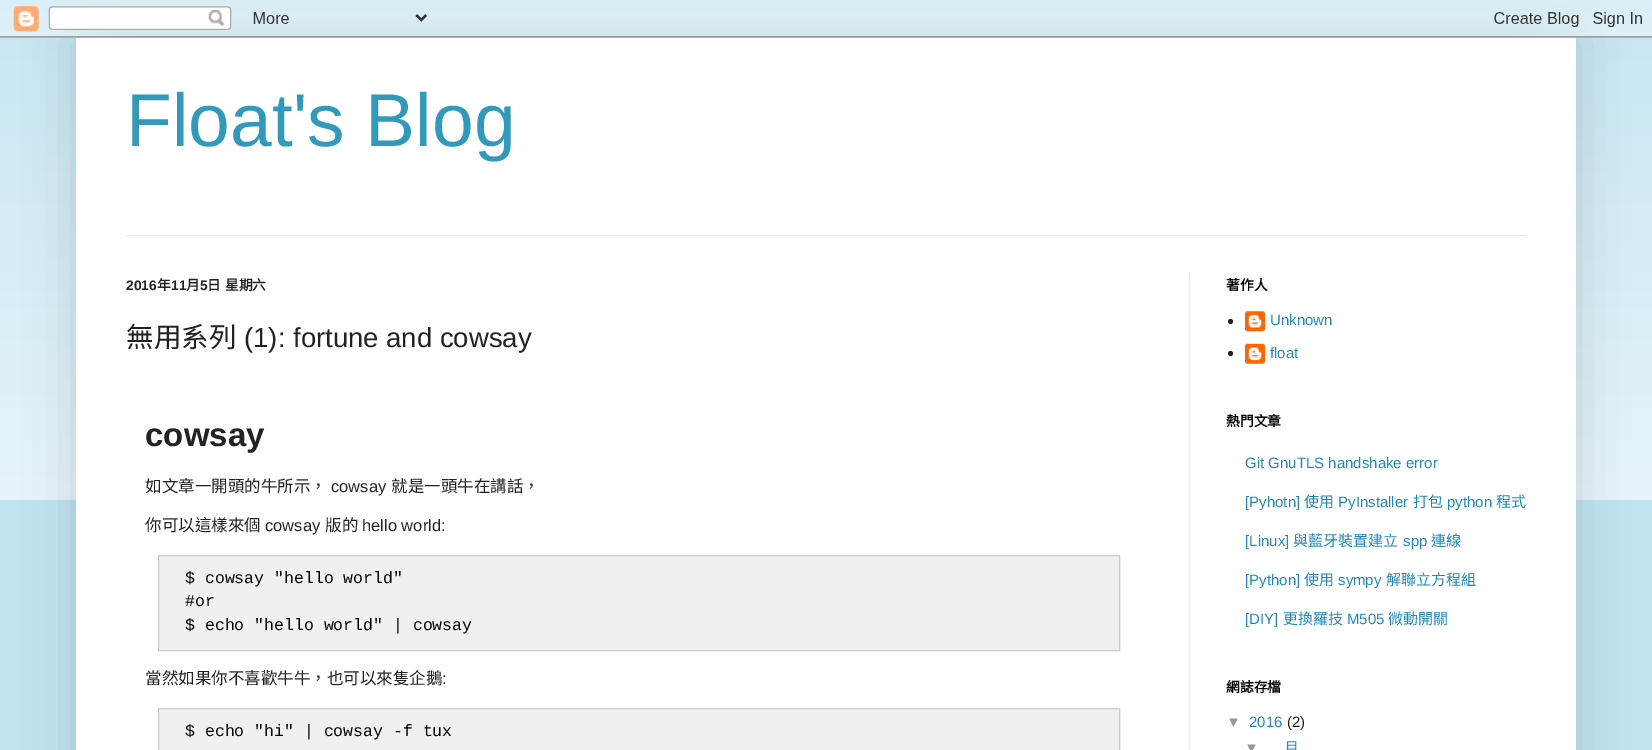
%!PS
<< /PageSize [1652 750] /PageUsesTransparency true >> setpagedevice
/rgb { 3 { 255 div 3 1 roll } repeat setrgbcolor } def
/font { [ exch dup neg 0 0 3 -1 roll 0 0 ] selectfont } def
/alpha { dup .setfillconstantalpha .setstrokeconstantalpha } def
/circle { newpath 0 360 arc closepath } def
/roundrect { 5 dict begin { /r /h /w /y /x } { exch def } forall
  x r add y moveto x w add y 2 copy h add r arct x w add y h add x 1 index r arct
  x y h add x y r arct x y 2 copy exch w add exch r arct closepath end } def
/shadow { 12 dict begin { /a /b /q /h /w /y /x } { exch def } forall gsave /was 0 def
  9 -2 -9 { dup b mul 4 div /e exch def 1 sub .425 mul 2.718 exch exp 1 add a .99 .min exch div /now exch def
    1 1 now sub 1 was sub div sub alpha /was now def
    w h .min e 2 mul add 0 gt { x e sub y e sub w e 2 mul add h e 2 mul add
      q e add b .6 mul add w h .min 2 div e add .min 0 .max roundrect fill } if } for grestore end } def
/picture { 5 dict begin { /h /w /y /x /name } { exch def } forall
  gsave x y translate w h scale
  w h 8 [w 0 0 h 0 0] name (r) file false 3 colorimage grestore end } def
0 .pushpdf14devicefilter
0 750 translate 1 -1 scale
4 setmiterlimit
194 228 242 rgb
0 0 1652 750 rectfill
(img/2.rgb) 0 13 1652 487 picture
0 0 0 rgb
76 38 1500 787 0 25 0.15 shadow
(img/1.rgb) 0 0 1652 38 picture
[
  [76 38 1500 712 255 255 255]
  [126 235 1400 1 238 238 238]
  [1189 274 1 476 238 238 238]
] { aload pop rgb rectfill } forall
240 240 240 rgb
158.5 555.5 moveto 1119.5 555.5 lineto 1119.5 650.5 lineto 158.5 650.5 lineto closepath gsave fill grestore
204 204 204 rgb
stroke
240 240 240 rgb
158.5 708.5 moveto 1119.5 708.5 lineto 1119.5 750.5 lineto 158.5 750.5 lineto closepath gsave fill grestore
204 204 204 rgb
stroke
34 34 34 rgb
1230.5 321.5 2.5 circle fill
(img/3.rgb) 1245 311 20 21 picture
1230.5 353.5 2.5 circle fill
(img/4.rgb) 1245 343 20 21 picture
/LiberationSans-Regular 75 font
51 153 187 rgb
126 146 moveto (Float's Blog) show
/LiberationSans-Bold 13.75 font
34 34 34 rgb
126 290 moveto (2016) show
/NotoSansCJKTC-Bold 13.75 font
157 290 moveto (年) show
/LiberationSans-Bold 13.75 font
171 290 moveto (11) show
/NotoSansCJKTC-Bold 13.75 font
186 290 moveto (月) show
/LiberationSans-Bold 13.75 font
200 290 moveto (5) show
/NotoSansCJKTC-Bold 13.75 font
207 290 moveto 1 0 32 (日 星期六) widthshow
/NotoSansCJKTC-Regular 27.5 font
126 347 moveto (無用系列) show
/LiberationSans-Regular 27.5 font
244 347 moveto (\(1\): fortune and cowsay) show
/LiberationSans-Bold 33 font
145 446 moveto (cowsay) show
/NotoSansCJKTC-Regular 16.5 font
145 492 moveto (如文章一開頭的牛所示，) show
/LiberationSans-Regular 16.5 font
331 492 moveto (cowsay) show
/NotoSansCJKTC-Regular 16.5 font
391 492 moveto (就是一頭牛在講話，) show
145 531 moveto (你可以這樣來個) show
/LiberationSans-Regular 16.5 font
265 531 moveto (cowsay) show
/NotoSansCJKTC-Regular 16.5 font
325 531 moveto (版的) show
/LiberationSans-Regular 16.5 font
362 531 moveto (hello world:) show
/LiberationMono-Regular 16.5 font
0 0 0 rgb
[
  [($ cowsay "hello world") 185 583]
  [(#or) 185 606]
  [($ echo "hello world" | cowsay) 185 630]
] { aload pop moveto show } forall
/NotoSansCJKTC-Regular 16.5 font
34 34 34 rgb
145 684 moveto (當然如果你不喜歡牛牛，也可以來隻企鵝) show
/LiberationSans-Regular 16.5 font
442 684 moveto (:) show
/LiberationMono-Regular 16.5 font
0 0 0 rgb
185 736 moveto ($ echo "hi" | cowsay -f tux) show
/NotoSansCJKTC-Bold 13.75 font
1226 290 moveto (著作人) show
/LiberationSans-Regular 15 font
34 136 187 rgb
1270 325 moveto (Unknown) show
1270 358 moveto (float) show
/NotoSansCJKTC-Bold 13.75 font
0 0 0 rgb
1226 426 moveto (熱門文章) show
/LiberationSans-Regular 15 font
34 136 187 rgb
1245 468 moveto (Git GnuTLS handshake error) show
1245 507 moveto ([Pyhotn]) show
/NotoSansCJKTC-Regular 15 font
1304 507 moveto (使用) show
/LiberationSans-Regular 15 font
1338 507 moveto (PyInstaller) show
/NotoSansCJKTC-Regular 15 font
1413 507 moveto (打包) show
/LiberationSans-Regular 15 font
1447 507 moveto (python) show
/NotoSansCJKTC-Regular 15 font
1496 507 moveto (程式) show
/LiberationSans-Regular 15 font
1245 546 moveto ([Linux]) show
/NotoSansCJKTC-Regular 15 font
1293 546 moveto (與藍牙裝置建立) show
/LiberationSans-Regular 15 font
1403 546 moveto (spp) show
/NotoSansCJKTC-Regular 15 font
1431 546 moveto (連線) show
/LiberationSans-Regular 15 font
1245 585 moveto ([Python]) show
/NotoSansCJKTC-Regular 15 font
1304 585 moveto (使用) show
/LiberationSans-Regular 15 font
1338 585 moveto (sympy) show
/NotoSansCJKTC-Regular 15 font
1386 585 moveto (解聯立方程組) show
/LiberationSans-Regular 15 font
1245 624 moveto ([DIY]) show
/NotoSansCJKTC-Regular 15 font
1283 624 moveto (更換羅技) show
/LiberationSans-Regular 15 font
1347 624 moveto (M505) show
/NotoSansCJKTC-Regular 15 font
1388 624 moveto (微動開關) show
/NotoSansCJKTC-Bold 13.75 font
0 0 0 rgb
1226 692 moveto (網誌存檔) show
/LiberationSans-Regular 15 font
153 153 153 rgb
1226 727 moveto (▼) show
34 136 187 rgb
1249 727 moveto (2016) show
34 34 34 rgb
1287 727 moveto (\(2\)) show
153 153 153 rgb
1244 753 moveto (▼) show
/NotoSansCJKTC-Regular 15 font
34 136 187 rgb
1284 753 moveto (月) show
.poppdf14devicefilter showpage
